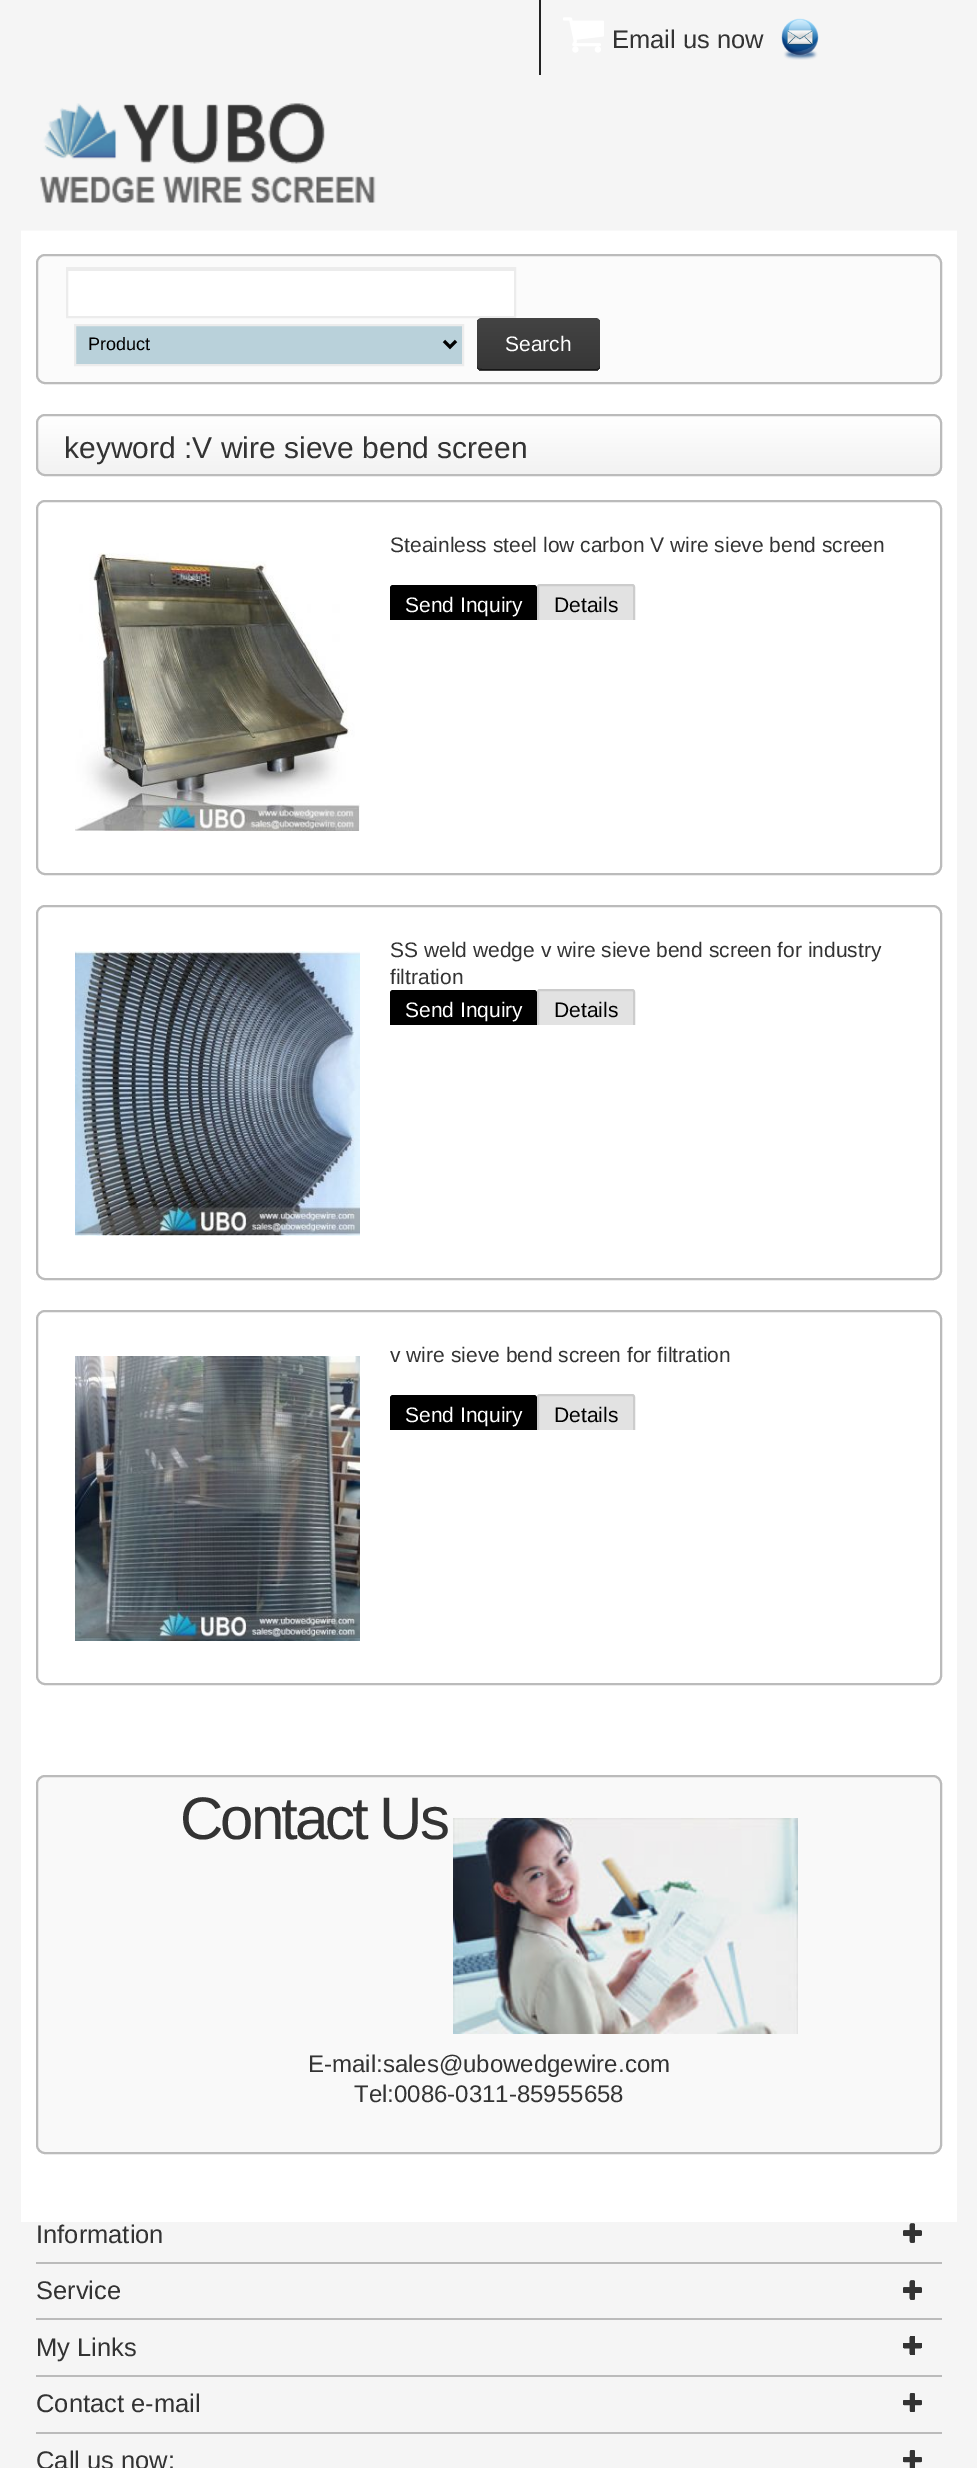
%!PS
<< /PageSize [977 2468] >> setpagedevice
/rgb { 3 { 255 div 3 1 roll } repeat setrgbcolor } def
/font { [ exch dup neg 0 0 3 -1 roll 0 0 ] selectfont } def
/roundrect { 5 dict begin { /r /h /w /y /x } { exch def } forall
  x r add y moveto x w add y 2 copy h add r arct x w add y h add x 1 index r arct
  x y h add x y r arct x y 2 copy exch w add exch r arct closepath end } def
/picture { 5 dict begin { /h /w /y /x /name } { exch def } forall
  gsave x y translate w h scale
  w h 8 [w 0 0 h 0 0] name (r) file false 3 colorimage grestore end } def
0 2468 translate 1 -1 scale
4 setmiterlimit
245 245 245 rgb
0 0 977 2468 rectfill
249 249 249 rgb
21 230 936 1 rectfill
35 35 35 rgb
539 0 2 75 rectfill
(img/1.rgb) 563 17 41 36 picture
(img/2.rgb) 781 18 38 42 picture
(img/3.rgb) 40 103 336 100 picture
255 255 255 rgb
21 231 936 1991 rectfill
251 251 251 rgb
37 255 904 128 8 roundrect gsave fill grestore
187 187 187 rgb
2 setlinewidth
stroke
255 255 255 rgb
68 271 446 45 rectfill
236 236 236 rgb
68 269 447 2 rectfill
67 268 448 49 rectstroke
185 209 218 rgb
75 325 moveto 463 325 lineto 463 365 lineto 75 365 lineto closepath gsave fill grestore
236 236 236 rgb
stroke
0 0 0 rgb
3 setlinewidth
444 341 moveto 450 347 lineto 456 341 lineto stroke
gsave
477 318 123 53 5 roundrect clip newpath
gsave 477 320 moveto 600 320 lineto 600 369 lineto 477 369 lineto closepath clip newpath
<< /ShadingType 2 /ColorSpace /DeviceRGB /Coords [477 320 477 369] /Extend [true true] /Function << /FunctionType 2 /Domain [0 1] /C0 [0.263 0.263 0.263] /C1 [0.216 0.216 0.216] /N 1 >> >> shfill grestore
gsave 477 369 moveto 600 369 lineto 600 371 lineto 477 371 lineto closepath clip newpath
<< /ShadingType 2 /ColorSpace /DeviceRGB /Coords [477 369 477 419] /Extend [true true] /Function << /FunctionType 2 /Domain [0 1] /C0 [0.263 0.263 0.263] /C1 [0.216 0.216 0.216] /N 1 >> >> shfill grestore
grestore
67 67 67 rgb
482 318 moveto 596 318 lineto 598 318 600 320 600 322 curveto 600 321 598 320 596 320 curveto 482 320 lineto 479 320 477 321 477 322 curveto 477 320 479 318 482 318 curveto closepath fill
22 22 22 rgb
596 370 moveto 598 370 600 368 600 366 curveto 599 368 lineto 597 369 lineto 482 369 lineto 480 369 477 369 477 366 curveto 477 368 479 370 482 370 curveto closepath fill
gsave
36 414 906 62 9 roundrect clip newpath
gsave 36 416 moveto 942 416 lineto 942 474 lineto 36 474 lineto closepath clip newpath
<< /ShadingType 2 /ColorSpace /DeviceRGB /Coords [38 416 38 474] /Extend [true true] /Function << /FunctionType 2 /Domain [0 1] /C0 [1 1 1] /C1 [0.949 0.949 0.949] /N 1 >> >> shfill grestore
grestore
187 187 187 rgb
2 setlinewidth
37 415 904 60 8 roundrect stroke
37 501 904 373 8 roundrect stroke
(img/4.rgb) 75 552 285 279 picture
0 0 0 rgb
393 585 moveto 534 585 lineto 535.5 585 537 586.5 537 588 curveto 537 620 lineto 390 620 lineto 390 588 lineto 390 586.5 391.5 585 393 585 curveto closepath fill
226 226 226 rgb
540 584 moveto 632 584 lineto 633.5 584 635 585.5 635 587 curveto 635 620 lineto 537 620 lineto 537 587 lineto 537 585.5 538.5 584 540 584 curveto closepath fill
gsave
390 531 528 89 rectclip
204 204 204 rgb
538 585 96 40 2 roundrect stroke
grestore
187 187 187 rgb
37 906 904 373 8 roundrect stroke
(img/5.rgb) 75 951 285 285 picture
0 0 0 rgb
393 990 moveto 534 990 lineto 535.5 990 537 991.5 537 993 curveto 537 1025 lineto 390 1025 lineto 390 993 lineto 390 991.5 391.5 990 393 990 curveto closepath fill
226 226 226 rgb
540 989 moveto 632 989 lineto 633.5 989 635 990.5 635 992 curveto 635 1025 lineto 537 1025 lineto 537 992 lineto 537 990.5 538.5 989 540 989 curveto closepath fill
gsave
390 936 528 89 rectclip
204 204 204 rgb
538 990 96 40 2 roundrect stroke
grestore
187 187 187 rgb
37 1311 904 373 8 roundrect stroke
(img/6.rgb) 75 1356 285 285 picture
0 0 0 rgb
393 1395 moveto 534 1395 lineto 535.5 1395 537 1396.5 537 1398 curveto 537 1430 lineto 390 1430 lineto 390 1398 lineto 390 1396.5 391.5 1395 393 1395 curveto closepath fill
226 226 226 rgb
540 1394 moveto 632 1394 lineto 633.5 1394 635 1395.5 635 1397 curveto 635 1430 lineto 537 1430 lineto 537 1397 lineto 537 1395.5 538.5 1394 540 1394 curveto closepath fill
gsave
390 1341 528 89 rectclip
204 204 204 rgb
538 1395 96 40 2 roundrect stroke
grestore
249 249 249 rgb
37 1776 904 377 8 roundrect gsave fill grestore
187 187 187 rgb
stroke
(img/7.rgb) 453 1818 345 216 picture
36 2262 906 2 rectfill
(img/8.rgb) 903 2223 19 20 picture
(img/9.rgb) 903 2223 19 20 picture
(img/10.rgb) 903 2223 19 20 picture
(img/11.rgb) 903 2223 19 20 picture
36 2318 906 2 rectfill
(img/8.rgb) 903 2280 19 20 picture
(img/9.rgb) 903 2280 19 20 picture
(img/10.rgb) 903 2280 19 20 picture
(img/11.rgb) 903 2280 19 20 picture
(img/12.rgb) 903 2280 19 20 picture
36 2375 906 2 rectfill
(img/13.rgb) 903 2336 19 19 picture
(img/14.rgb) 903 2336 19 19 picture
(img/15.rgb) 903 2336 19 19 picture
(img/16.rgb) 903 2336 19 19 picture
(img/17.rgb) 904 2336 18 18 picture
36 2432 906 2 rectfill
(img/13.rgb) 903 2393 19 19 picture
(img/14.rgb) 903 2393 19 19 picture
(img/18.rgb) 903 2450 19 18 picture
(img/19.rgb) 903 2450 19 18 picture
/LiberationSans-Regular 25.5 font
51 51 51 rgb
612 48 moveto (Email us now) show
/LiberationSans-Regular 18 font
0 0 0 rgb
88 350 moveto (Product) show
/LiberationSans-Regular 21 font
255 255 255 rgb
505 351 moveto (Search) show
/LiberationSans-Regular 30 font
51 51 51 rgb
64 458 moveto (keyword :V wire sieve bend screen) show
/LiberationSans-Regular 21 font
390 552 moveto (Steainless steel low carbon V wire sieve bend screen) show
255 255 255 rgb
405 612 moveto (Send Inquiry) show
0 0 0 rgb
554 612 moveto (Details) show
51 51 51 rgb
390 957 moveto (SS weld wedge v wire sieve bend screen for industry) show
390 984 moveto (filtration) show
255 255 255 rgb
405 1017 moveto (Send Inquiry) show
0 0 0 rgb
554 1017 moveto (Details) show
51 51 51 rgb
390 1362 moveto (v wire sieve bend screen for filtration) show
255 255 255 rgb
405 1422 moveto (Send Inquiry) show
0 0 0 rgb
554 1422 moveto (Details) show
/LiberationSans-Regular 60 font
51 51 51 rgb
180 1839 moveto -3 0 (Contact Us) ashow
/LiberationSans-Regular 24 font
308 2072 moveto (E-mail:sales@ubowedgewire.com) show
354 2102 moveto (Tel:0086-0311-85955658) show
/LiberationSans-Regular 25.5 font
[
  [(Information) 36 2243]
  [(Service) 36 2299]
  [(My Links) 36 2356]
  [(Contact e-mail) 36 2412]
  [(Call us now:) 36 2469]
] { aload pop moveto show } forall
showpage
